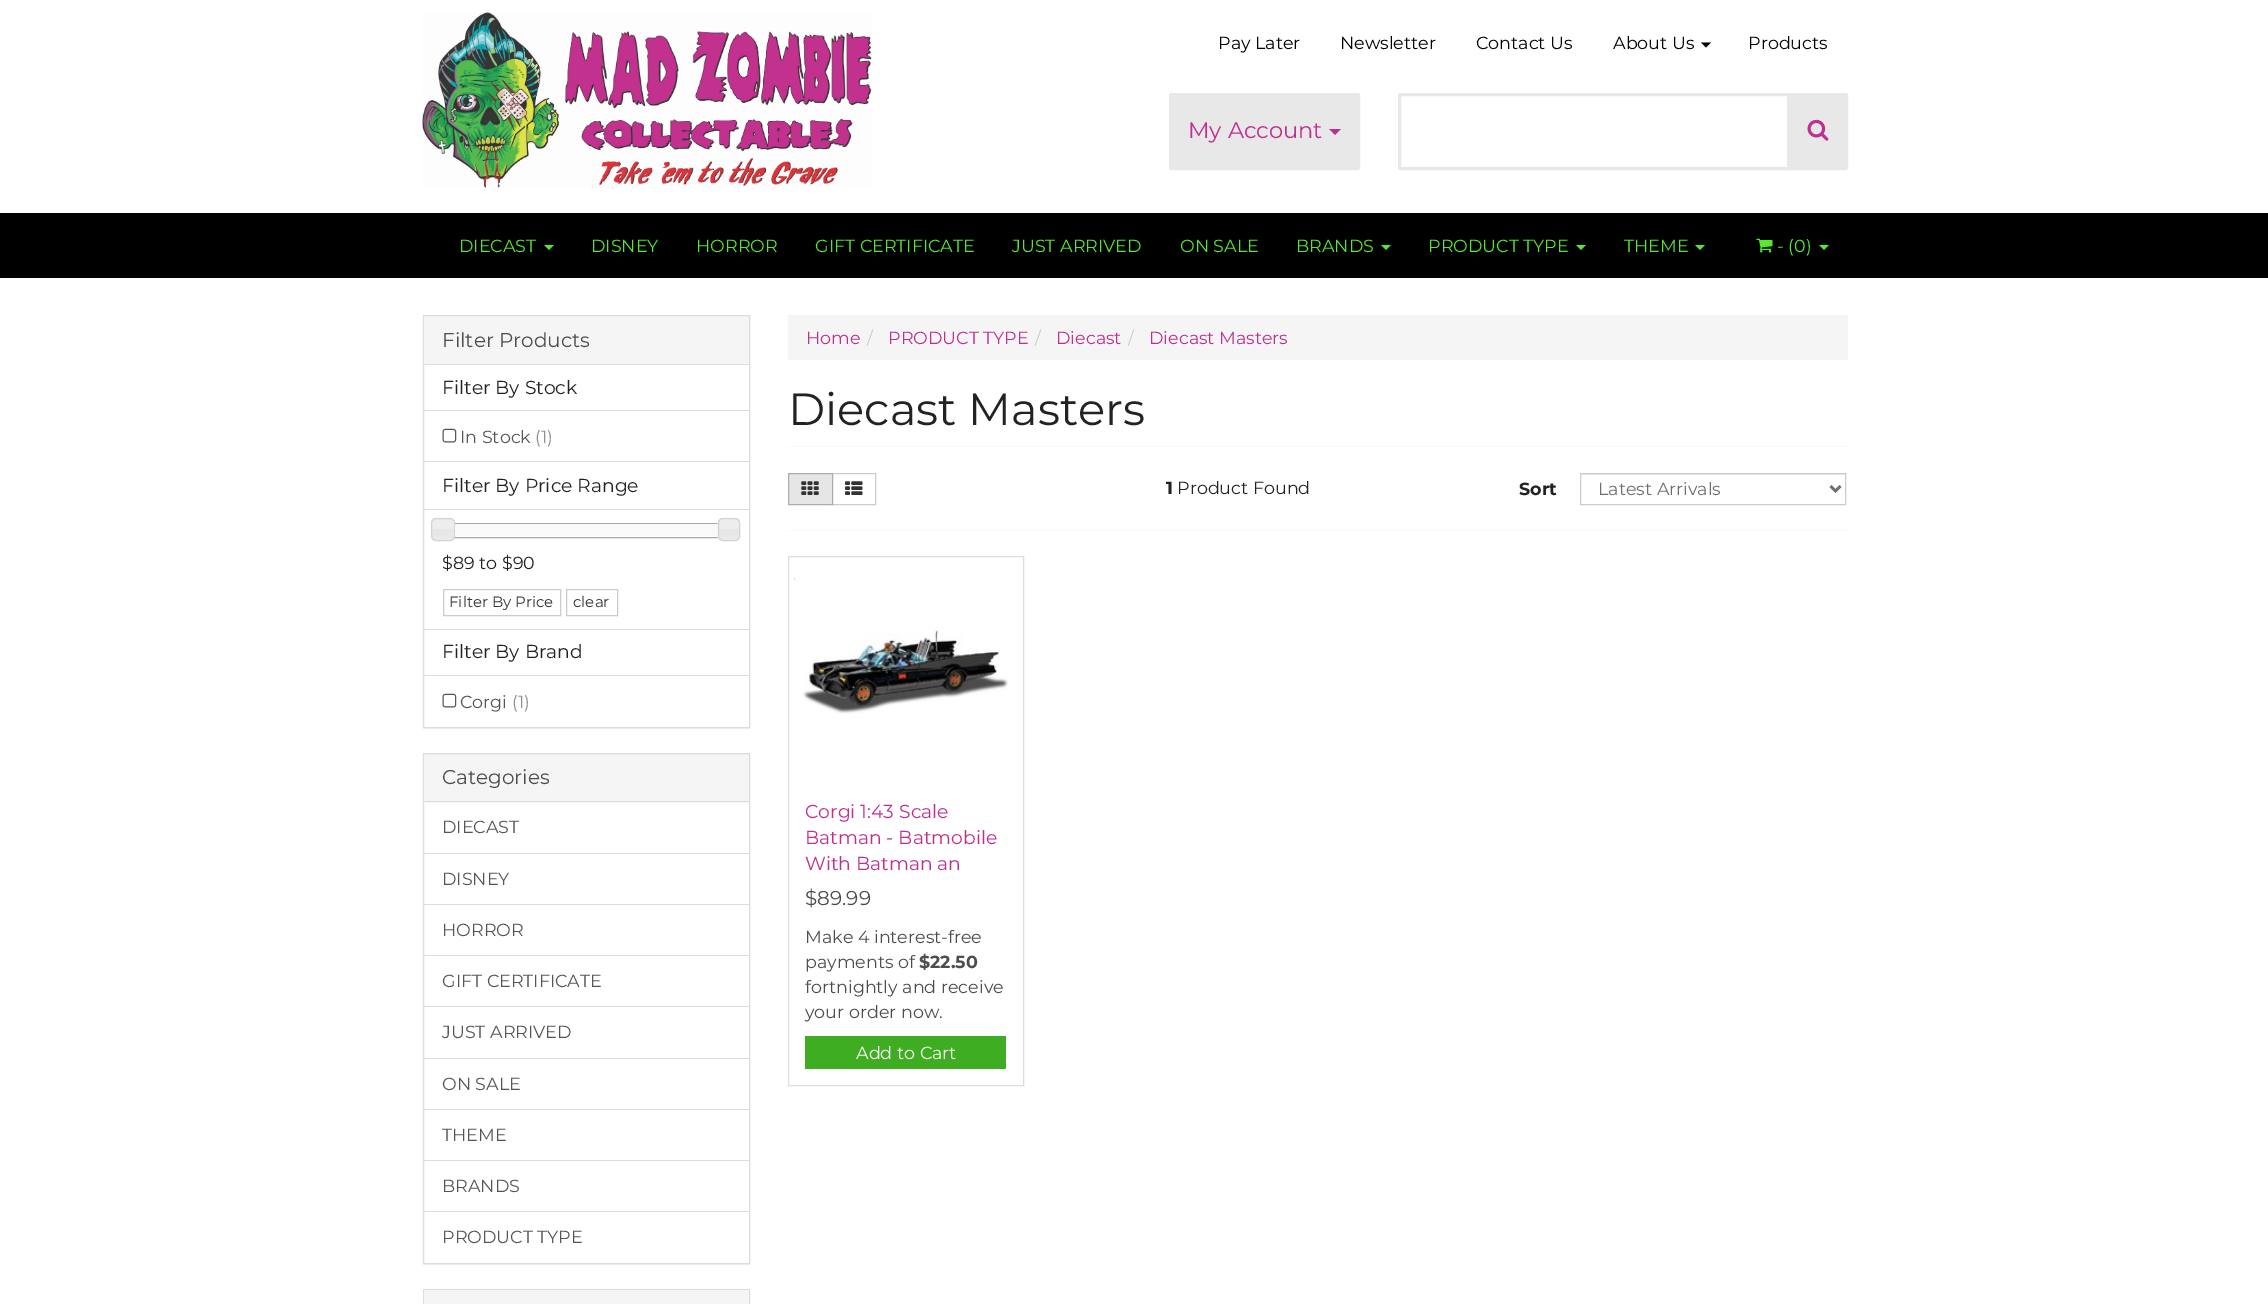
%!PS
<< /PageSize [2268 1304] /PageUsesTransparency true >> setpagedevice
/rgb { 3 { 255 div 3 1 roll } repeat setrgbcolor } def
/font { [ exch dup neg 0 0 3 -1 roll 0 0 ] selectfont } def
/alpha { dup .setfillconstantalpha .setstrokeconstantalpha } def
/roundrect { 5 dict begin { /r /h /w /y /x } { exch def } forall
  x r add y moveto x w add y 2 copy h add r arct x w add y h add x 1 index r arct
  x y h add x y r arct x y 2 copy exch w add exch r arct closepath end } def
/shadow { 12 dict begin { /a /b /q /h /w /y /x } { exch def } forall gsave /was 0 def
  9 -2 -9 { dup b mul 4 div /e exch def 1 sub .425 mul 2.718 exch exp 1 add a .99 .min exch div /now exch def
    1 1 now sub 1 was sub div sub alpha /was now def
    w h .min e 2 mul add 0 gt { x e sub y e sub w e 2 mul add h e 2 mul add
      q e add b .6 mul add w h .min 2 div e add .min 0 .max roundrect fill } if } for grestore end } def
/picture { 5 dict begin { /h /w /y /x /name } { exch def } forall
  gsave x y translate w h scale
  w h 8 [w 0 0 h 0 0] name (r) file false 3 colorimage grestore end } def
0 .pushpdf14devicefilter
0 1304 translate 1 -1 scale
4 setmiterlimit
255 255 255 rgb
0 0 2268 1304 rectfill
(img/1.rgb) 422 12 450 176 picture
0 0 0 rgb
1701 42.5 moveto 1711 42.5 lineto 1706 47.5 lineto closepath fill
232 232 232 rgb
1169.5 93.5 190 76 2 roundrect gsave fill grestore
stroke
191 47 144 rgb
1329 129 moveto 1341 129 lineto 1335 135 lineto closepath fill
232 232 232 rgb
1789.5 93.5 moveto 1845.5 93.5 lineto 1846.5 93.5 1847.5 94.5 1847.5 95.5 curveto 1847.5 167.5 lineto 1847.5 168.5 1846.5 169.5 1845.5 169.5 curveto 1789.5 169.5 lineto closepath gsave fill grestore
stroke
255 255 255 rgb
1400.5 94.5 moveto 1788.5 94.5 lineto 1788.5 168.5 lineto 1400.5 168.5 lineto 1400 168.5 1399.5 168 1399.5 167.5 curveto 1399.5 95.5 lineto 1399.5 95 1400 94.5 1400.5 94.5 curveto closepath gsave fill grestore
232 232 232 rgb
3 setlinewidth
stroke
(img/2.rgb) 1807 119 22 22 picture
0 0 0 rgb
0 213 2268 65 rectfill
87 231 47 rgb
544 245 moveto 554 245 lineto 549 250 lineto closepath fill
1381 245 moveto 1391 245 lineto 1386 250 lineto closepath fill
1576 245 moveto 1586 245 lineto 1581 250 lineto closepath fill
1695 245 moveto 1705 245 lineto 1700 250 lineto closepath fill
(img/3.rgb) 1756 238 17 15 picture
1819 245 moveto 1829 245 lineto 1824 250 lineto closepath fill
0 0 0 rgb
423 316 327 413 0 0.5 0.05 shadow
255 255 255 rgb
424 365 325 362 rectfill
221 221 221 rgb
1 setlinewidth
423.5 315.5 326 412 rectstroke
[
  [424 317 325 47 245 245 245]
  [424 364 325 1 221 221 221]
  [424 410 325 1 221 221 221]
] { aload pop rgb rectfill } forall
(img/4.rgb) 442 428 15 15 picture
[
  [424 461 325 1 221 221 221]
  [424 509 325 1 221 221 221]
  [424 629 325 1 221 221 221]
] { aload pop rgb rectfill } forall
170 170 170 rgb
443.5 523.5 286 14 rectstroke
(img/5.rgb) 432 517 23 24 picture
211 211 211 rgb
431.5 518.5 23 22 4.5 roundrect stroke
249 249 249 rgb
455 524 263 12 rectfill
(img/6.rgb) 717 517 23 24 picture
211 211 211 rgb
718.5 518.5 21 22 4.5 roundrect stroke
204 204 204 rgb
443.5 589.5 117 26 rectstroke
566.5 589.5 51 26 rectstroke
221 221 221 rgb
424 675 325 1 rectfill
(img/4.rgb) 442 693 15 15 picture
0 0 0 rgb
423 754 327 511 0 0.5 0.05 shadow
255 255 255 rgb
424 803 325 460 rectfill
221 221 221 rgb
423.5 753.5 326 510 rectstroke
[
  [424 755 325 48 245 245 245]
  [424 801 325 1 221 221 221]
  [424 853 325 1 221 221 221]
  [424 904 325 1 221 221 221]
  [424 955 325 1 221 221 221]
  [424 1006 325 1 221 221 221]
  [424 1058 325 1 221 221 221]
  [424 1109 325 1 221 221 221]
  [424 1160 325 1 221 221 221]
  [424 1211 325 1 221 221 221]
] { aload pop rgb rectfill } forall
423.5 1289.5 326 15 rectstroke
[
  [424 1290 325 14 245 245 245]
  [788 315 1060 45 245 245 245]
  [788 446 1060 1 249 249 249]
] { aload pop rgb rectfill } forall
204 204 204 rgb
831.5 473.5 44 31 rectstroke
230 230 230 rgb
788.5 473.5 moveto 832.5 473.5 lineto 832.5 504.5 lineto 788.5 504.5 lineto closepath gsave fill grestore
173 173 173 rgb
stroke
(img/7.rgb) 801 481 18 14 picture
(img/8.rgb) 845 481 18 14 picture
236 236 236 rgb
1581 474 264 1 rectfill
204 204 204 rgb
1580.5 473.5 265 31 rectstroke
111 111 111 rgb
2.5 setlinewidth
1830.5 486 moveto 1835.5 491 lineto 1840.5 486 lineto stroke
249 249 249 rgb
788 530 1060 1 rectfill
221 221 221 rgb
1 setlinewidth
788.5 556.5 235 529 rectstroke
(img/9.rgb) 794 577 215 137 picture
63 173 33 rgb
805 1036 201 33 rectfill
/Montserrat-Regular 17.5 font
0 0 0 rgb
[
  [(Pay Later) 1218 49]
  [(Newsletter) 1340 49]
  [(Contact Us) 1476 49]
  [(About Us) 1613 49]
  [(Products) 1748 49]
] { aload pop moveto show } forall
/Montserrat-Regular 22.5 font
191 47 144 rgb
1188 138 moveto (My Account) show
/Montserrat-Regular 17.5 font
87 231 47 rgb
[
  [(DIECAST) 459 252]
  [(DISNEY) 591 252]
  [(HORROR) 696 252]
  [(GIFT CERTIFICATE) 815 252]
  [(JUST ARRIVED) 1012 252]
  [(ON SALE) 1180 252]
  [(BRANDS) 1296 252]
  [(PRODUCT TYPE) 1428 252]
  [(THEME) 1624 252]
  [(- \(0\)) 1777 252]
] { aload pop moveto show } forall
/Montserrat-Regular 20 font
77 77 77 rgb
442 347 moveto (Filter Products) show
/Montserrat-Regular 18.75 font
34 34 34 rgb
442 394 moveto (Filter By Stock) show
/Montserrat-Regular 17.5 font
85 85 85 rgb
460 443 moveto (In Stock) show
142 142 142 rgb
535 443 moveto (\(1\)) show
/Montserrat-Regular 18.75 font
34 34 34 rgb
442 492 moveto (Filter By Price Range) show
/Montserrat-Regular 17.5 font
442 569 moveto ($89 to $90) show
/Montserrat-Regular 15 font
51 51 51 rgb
449 607 moveto (Filter By Price) show
573 607 moveto (clear) show
/Montserrat-Regular 18.75 font
34 34 34 rgb
442 658 moveto (Filter By Brand) show
/Montserrat-Regular 17.5 font
85 85 85 rgb
460 708 moveto (Corgi) show
142 142 142 rgb
512 708 moveto (\(1\)) show
/Montserrat-Regular 20 font
77 77 77 rgb
442 784 moveto (Categories) show
/Montserrat-Regular 17.5 font
85 85 85 rgb
[
  [(DIECAST) 442 833]
  [(DISNEY) 442 885]
  [(HORROR) 442 936]
  [(GIFT CERTIFICATE) 442 987]
  [(JUST ARRIVED) 442 1038]
  [(ON SALE) 442 1090]
  [(THEME) 442 1141]
  [(BRANDS) 442 1192]
  [(PRODUCT TYPE) 442 1243]
] { aload pop moveto show } forall
191 47 144 rgb
806 344 moveto (Home) show
204 204 204 rgb
867 344 moveto (/) show
191 47 144 rgb
888 344 moveto (PRODUCT TYPE) show
204 204 204 rgb
1035 344 moveto (/) show
191 47 144 rgb
1056 344 moveto (Diecast) show
204 204 204 rgb
1128 344 moveto (/) show
191 47 144 rgb
1149 344 moveto (Diecast Masters) show
/Montserrat-Regular 45 font
34 34 34 rgb
788 425 moveto (Diecast Masters) show
/Montserrat-Bold 17.5 font
1166 494 moveto (1) show
/Montserrat-Regular 17.5 font
1177 494 moveto (Product Found) show
/Montserrat-Bold 17.5 font
1519 495 moveto (Sort) show
/Montserrat-Regular 17.5 font
111 111 111 rgb
1598 495 moveto (Latest Arrivals) show
/Montserrat-Regular 18.75 font
191 47 144 rgb
[
  [(Corgi 1:43 Scale) 805 818]
  [(Batman - Batmobile) 805 844]
  [(With Batman an) 805 870]
] { aload pop moveto show } forall
/Montserrat-Regular 20 font
77 77 77 rgb
805 905 moveto ($89.99) show
/Montserrat-Regular 17.5 font
805 943 moveto (Make 4 interest-free) show
805 968 moveto (payments of) show
/Montserrat-Bold 17.5 font
919 968 moveto ($22.50) show
/Montserrat-Regular 17.5 font
805 993 moveto (fortnightly and receive) show
805 1018 moveto (your order now.) show
255 255 255 rgb
856 1059 moveto (Add to Cart) show
.poppdf14devicefilter showpage
